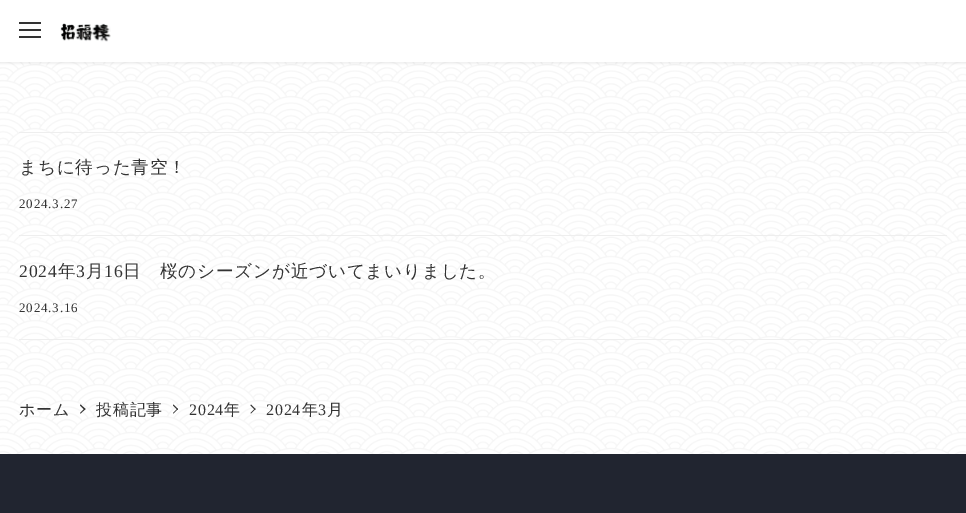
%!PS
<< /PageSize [966 513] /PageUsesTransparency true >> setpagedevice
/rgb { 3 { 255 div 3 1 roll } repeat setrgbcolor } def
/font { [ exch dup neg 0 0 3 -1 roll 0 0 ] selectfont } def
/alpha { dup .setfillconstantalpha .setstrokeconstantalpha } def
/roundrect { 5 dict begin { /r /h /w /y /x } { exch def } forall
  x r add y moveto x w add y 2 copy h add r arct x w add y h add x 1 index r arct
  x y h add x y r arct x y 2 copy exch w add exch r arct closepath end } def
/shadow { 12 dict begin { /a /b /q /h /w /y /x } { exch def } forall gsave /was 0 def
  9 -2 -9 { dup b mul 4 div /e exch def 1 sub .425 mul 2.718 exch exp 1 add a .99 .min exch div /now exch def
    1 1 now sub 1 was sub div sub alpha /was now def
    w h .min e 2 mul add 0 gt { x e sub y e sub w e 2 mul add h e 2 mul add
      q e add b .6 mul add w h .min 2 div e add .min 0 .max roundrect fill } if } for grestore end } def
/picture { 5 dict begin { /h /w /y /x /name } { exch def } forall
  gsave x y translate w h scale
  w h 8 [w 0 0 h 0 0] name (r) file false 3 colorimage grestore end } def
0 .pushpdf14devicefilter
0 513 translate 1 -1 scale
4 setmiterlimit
255 255 255 rgb
0 0 966 513 rectfill
(img/1.rgb) 0 62 966 392 picture
0 0 0 rgb
-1 0 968 64 0 1 0.05 shadow
[
  [0 0 966 62 255 255 255]
  [19 22 22 2 51 51 51]
  [19 29 22 2 51 51 51]
  [19 36 22 2 51 51 51]
] { aload pop rgb rectfill } forall
(img/2.rgb) 60 23 51 19 picture
[
  [19 132 928 1 238 238 238]
  [19 235 928 1 238 238 238]
  [19 339 928 1 238 238 238]
] { aload pop rgb rectfill } forall
51 51 51 rgb
80.5 404.5 moveto 85.5 409 lineto 84.5 410 lineto 80 405.5 lineto closepath fill
84.5 408.5 moveto 85.5 409 lineto 80.5 413.5 lineto 80 413 lineto closepath fill
173.5 404.5 moveto 178 409 lineto 177.5 410 lineto 173 405.5 lineto closepath fill
177.5 408.5 moveto 178 409 lineto 173.5 413.5 lineto 173 413 lineto closepath fill
251 404.5 moveto 255.5 409 lineto 255 410 lineto 250.5 405.5 lineto closepath fill
255 408.5 moveto 255.5 409 lineto 251 413.5 lineto 250.5 413 lineto closepath fill
33 37 48 rgb
0 454 966 59 rectfill
/WenQuanYiZenHei-Medium 17.6 font
51 51 51 rgb
19 173 moveto 0.8 0 (まちに待った青空！) ashow
/LiberationSerif-Regular 13 font
19 208 moveto 0.8 0 (2024.3.27) ashow
/LiberationSerif-Regular 17.6 font
19 277 moveto 0.8 0 (2024) ashow
/WenQuanYiZenHei-Medium 17.6 font
58 277 moveto 0.8 0 (年) ashow
/LiberationSerif-Regular 17.6 font
76 277 moveto 0.8 0 (3) ashow
/WenQuanYiZenHei-Medium 17.6 font
86 277 moveto 0.8 0 (月) ashow
/LiberationSerif-Regular 17.6 font
104 277 moveto 0.8 0 (16) ashow
/WenQuanYiZenHei-Medium 17.6 font
123 277 moveto 0.8 0 (日　桜のシーズンが近づいてまいりました。) ashow
/LiberationSerif-Regular 13 font
19 312 moveto 0.8 0 (2024.3.16) ashow
/WenQuanYiZenHei-Medium 16 font
19 415 moveto 0.8 0 (ホーム) ashow
96 415 moveto 0.8 0 (投稿記事) ashow
/LiberationSerif-Regular 16 font
189 415 moveto 0.8 0 (2024) ashow
/WenQuanYiZenHei-Medium 16 font
224 415 moveto 0.8 0 (年) ashow
/LiberationSerif-Regular 16 font
266 415 moveto 0.8 0 (2024) ashow
/WenQuanYiZenHei-Medium 16 font
302 415 moveto 0.8 0 (年) ashow
/LiberationSerif-Regular 16 font
318 415 moveto 0.8 0 (3) ashow
/WenQuanYiZenHei-Medium 16 font
327 415 moveto 0.8 0 (月) ashow
.poppdf14devicefilter showpage
